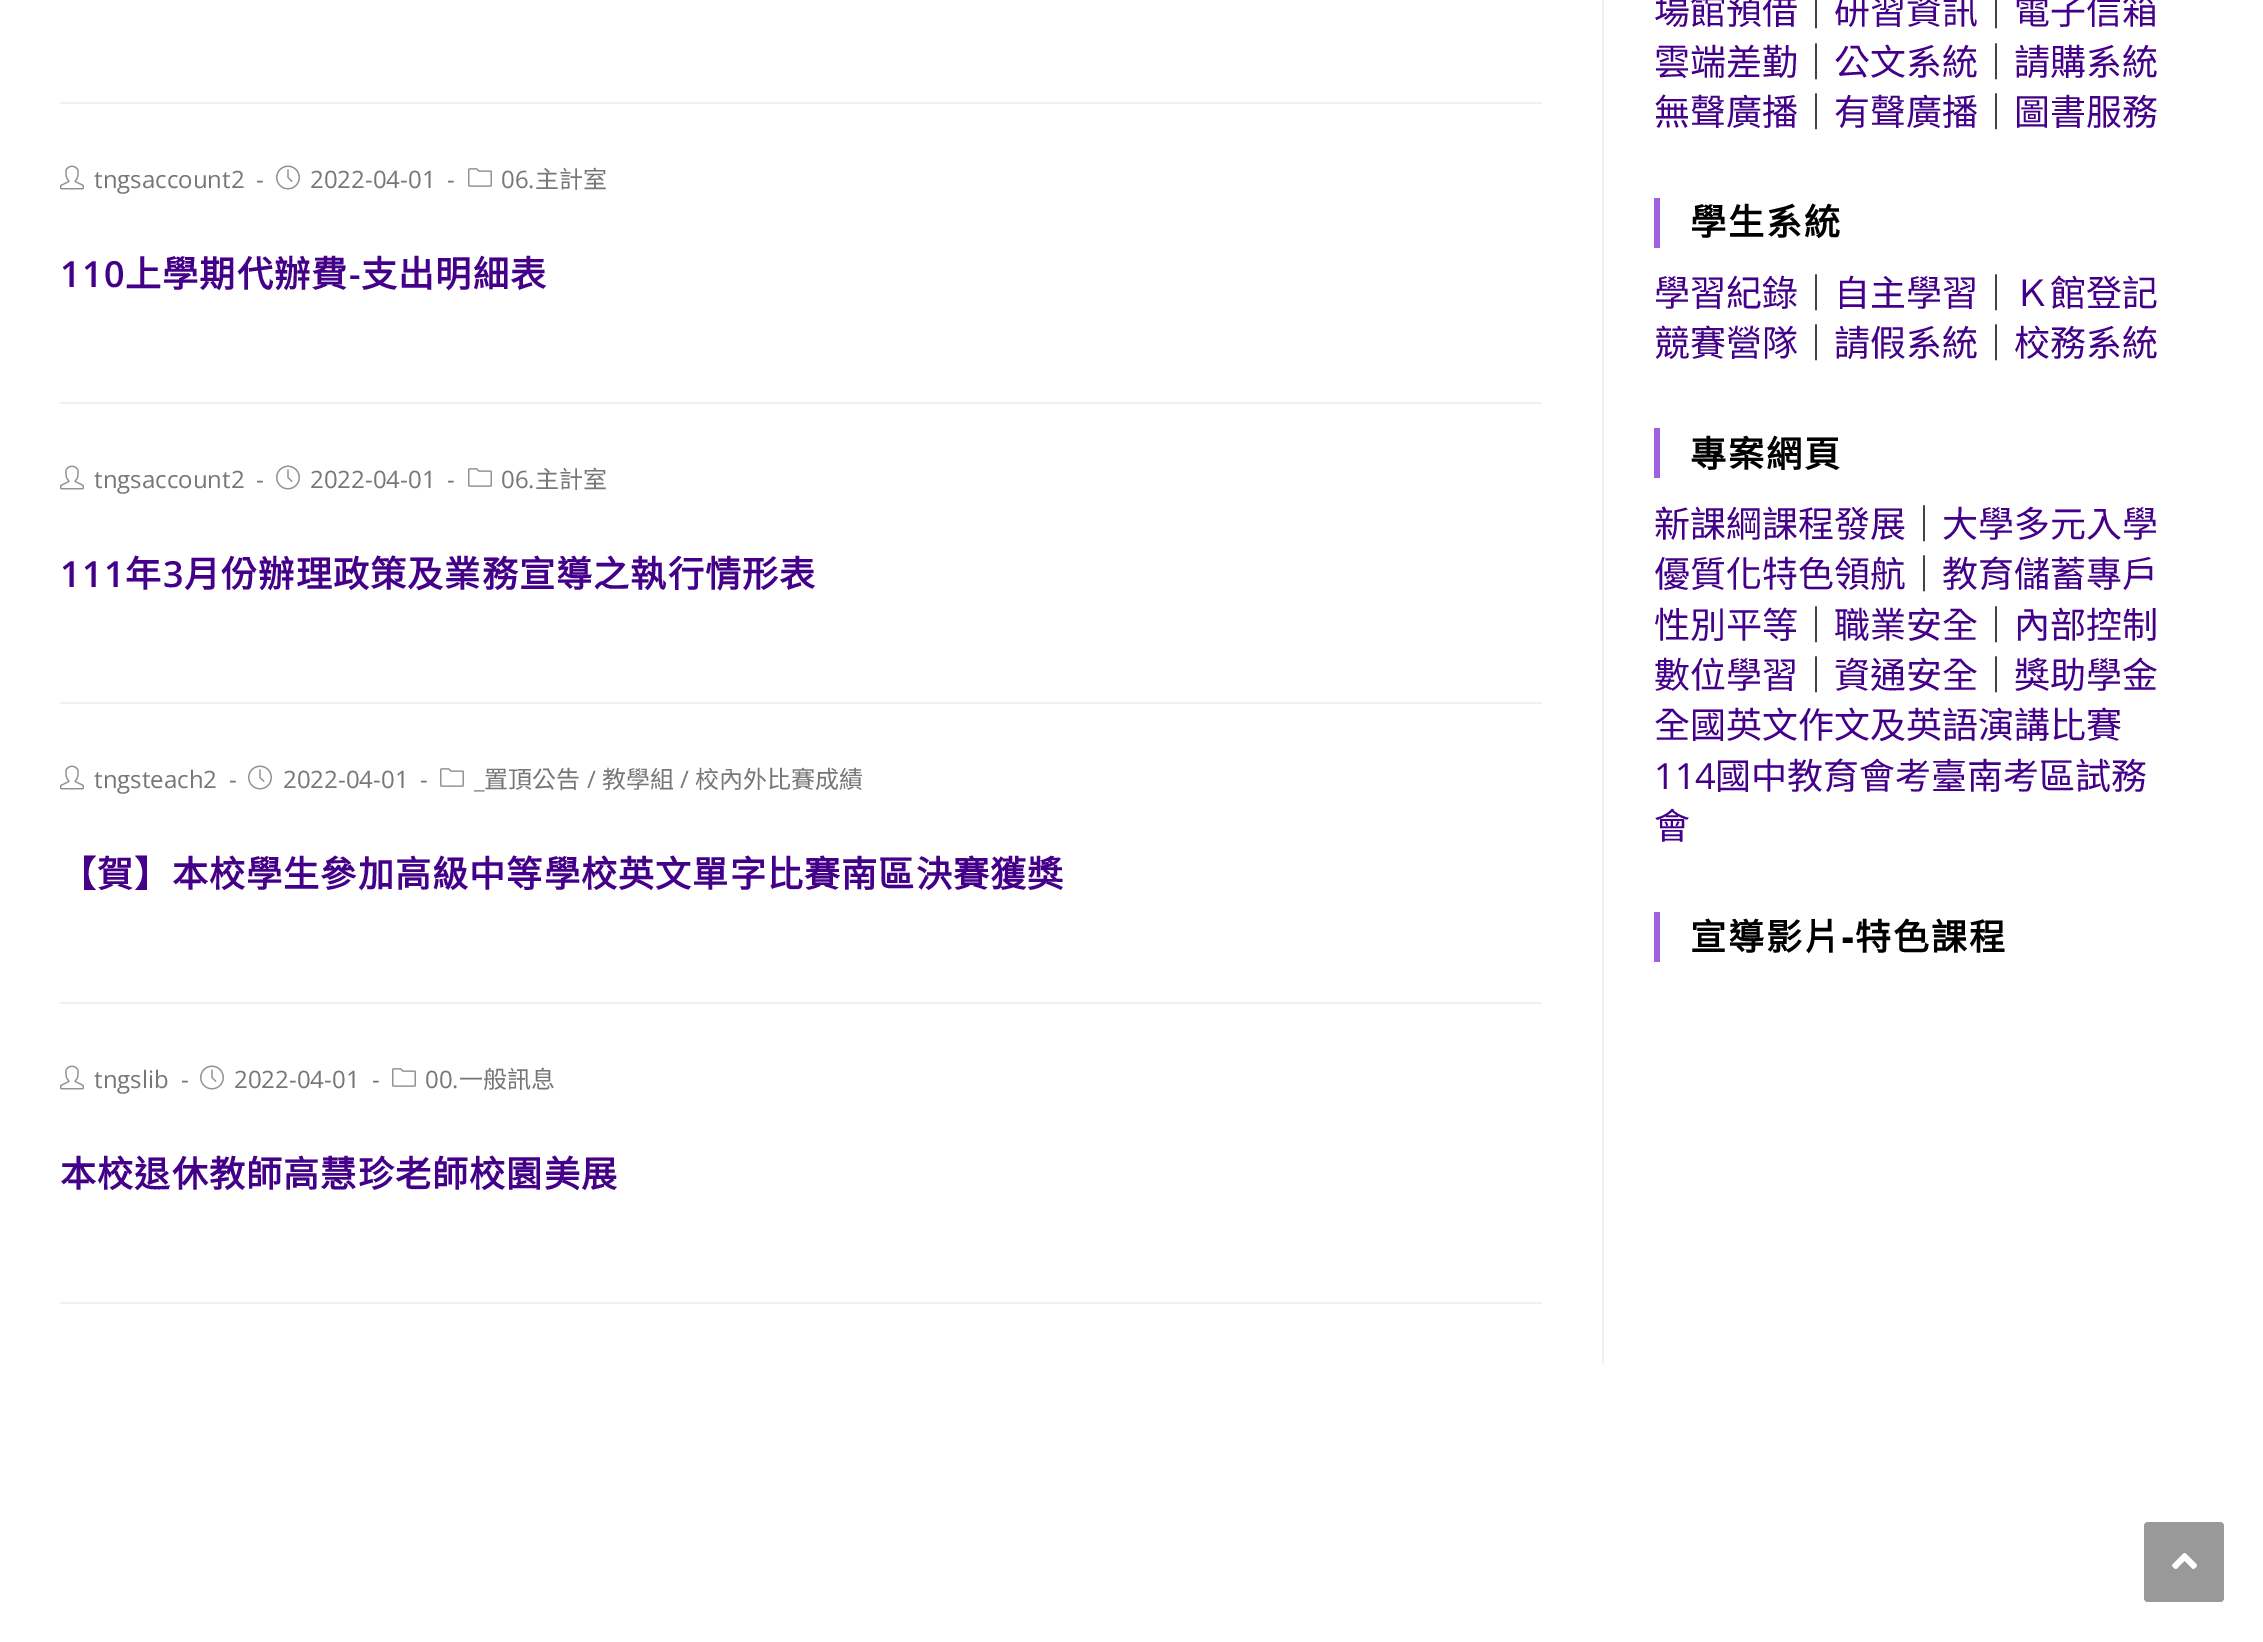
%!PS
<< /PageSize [2263 1642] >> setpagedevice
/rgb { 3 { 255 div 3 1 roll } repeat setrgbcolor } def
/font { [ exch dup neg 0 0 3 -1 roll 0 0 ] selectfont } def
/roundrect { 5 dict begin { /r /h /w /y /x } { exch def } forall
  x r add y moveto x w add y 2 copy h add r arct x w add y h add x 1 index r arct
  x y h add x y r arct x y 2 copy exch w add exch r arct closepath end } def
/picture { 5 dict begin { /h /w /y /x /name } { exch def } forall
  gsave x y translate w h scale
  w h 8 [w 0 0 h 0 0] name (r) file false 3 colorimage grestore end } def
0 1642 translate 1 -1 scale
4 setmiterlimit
255 255 255 rgb
0 0 2263 1642 rectfill
[
  [1602 0 2 1364 241 241 241]
  [60 102 1482 2 241 241 241]
  [60 402 1482 2 241 241 241]
] { aload pop rgb rectfill } forall
(img/1.rgb) 60 165 24 25 picture
(img/2.rgb) 276 165 24 25 picture
(img/3.rgb) 468 168 24 19 picture
60 702 1482 2 rectfill
(img/1.rgb) 60 465 24 25 picture
(img/2.rgb) 276 465 24 25 picture
(img/3.rgb) 468 468 24 19 picture
60 1002 1482 2 rectfill
(img/1.rgb) 60 765 24 25 picture
(img/2.rgb) 248 765 24 25 picture
(img/3.rgb) 440 768 24 19 picture
60 1302 1482 2 rectfill
(img/1.rgb) 60 1065 24 25 picture
(img/2.rgb) 200 1065 24 25 picture
(img/3.rgb) 392 1068 24 19 picture
[
  [1654 198 6 50 161 95 226]
  [1654 428 6 50 161 95 226]
  [1654 912 6 50 161 95 226]
] { aload pop rgb rectfill } forall
153 153 153 rgb
2144 1522 80 80 4 roundrect fill
(img/4.rgb) 2172 1553 25 16 picture
/OpenSans-Regular 24 font
119 119 119 rgb
[
  [(tngsaccount2) 94 188]
  [(-) 256 188]
  [(2022-04-01) 310 188]
  [(-) 447 188]
  [(06.) 501 188]
] { aload pop moveto show } forall
/NotoSansCJKTC-Regular 24 font
535 188 moveto (主計室) show
/OpenSans-SemiBold 36 font
68 0 136 rgb
60 287 moveto 1.2 0 (110) ashow
/NotoSansCJKTC-Bold 36 font
125 287 moveto 1.2 0 (上學期代辦費) ashow
/OpenSans-SemiBold 36 font
349 287 moveto 1.2 0 (-) ashow
/NotoSansCJKTC-Bold 36 font
361 287 moveto 1.2 0 (支出明細表) ashow
/OpenSans-Regular 24 font
119 119 119 rgb
[
  [(tngsaccount2) 94 488]
  [(-) 256 488]
  [(2022-04-01) 310 488]
  [(-) 447 488]
  [(06.) 501 488]
] { aload pop moveto show } forall
/NotoSansCJKTC-Regular 24 font
535 488 moveto (主計室) show
/OpenSans-SemiBold 36 font
68 0 136 rgb
60 587 moveto 1.2 0 (111) ashow
/NotoSansCJKTC-Bold 36 font
125 587 moveto 1.2 0 (年) ashow
/OpenSans-SemiBold 36 font
163 587 moveto 1.2 0 (3) ashow
/NotoSansCJKTC-Bold 36 font
184 587 moveto 1.2 0 (月份辦理政策及業務宣導之執行情形表) ashow
/OpenSans-Regular 24 font
119 119 119 rgb
[
  [(tngsteach2) 94 788]
  [(-) 229 788]
  [(2022-04-01) 283 788]
  [(-) 420 788]
] { aload pop moveto show } forall
/NotoSansCJKTC-Regular 24 font
484 788 moveto (置頂公告) show
/OpenSans-Regular 24 font
587 788 moveto (/) show
/NotoSansCJKTC-Regular 24 font
602 788 moveto (教學組) show
/OpenSans-Regular 24 font
680 788 moveto (/) show
/NotoSansCJKTC-Regular 24 font
695 788 moveto (校內外比賽成績) show
/OpenSans-Regular 24 font
474 788 moveto (_) show
/NotoSansCJKTC-Bold 36 font
68 0 136 rgb
60 887 moveto 1.2 0 (【賀】本校學生參加高級中等學校英文單字比賽南區決賽獲獎) ashow
/OpenSans-Regular 24 font
119 119 119 rgb
[
  [(tngslib) 94 1088]
  [(-) 181 1088]
  [(2022-04-01) 234 1088]
  [(-) 372 1088]
  [(00.) 425 1088]
] { aload pop moveto show } forall
/NotoSansCJKTC-Regular 24 font
459 1088 moveto (一般訊息) show
/NotoSansCJKTC-Bold 36 font
68 0 136 rgb
60 1187 moveto 1.2 0 (本校退休教師高慧珍老師校園美展) ashow
/NotoSansCJKTC-Regular 36 font
1654 24 moveto (場館預借) show
0 0 0 rgb
1798 24 moveto (｜) show
68 0 136 rgb
1834 24 moveto (研習資訊) show
0 0 0 rgb
1978 24 moveto (｜) show
68 0 136 rgb
2014 24 moveto (電子信箱) show
1654 75 moveto (雲端差勤) show
0 0 0 rgb
1798 75 moveto (｜) show
68 0 136 rgb
1834 75 moveto (公文系統) show
0 0 0 rgb
1978 75 moveto (｜) show
68 0 136 rgb
2014 75 moveto (請購系統) show
1654 125 moveto (無聲廣播) show
0 0 0 rgb
1798 125 moveto (｜) show
68 0 136 rgb
1834 125 moveto (有聲廣播) show
0 0 0 rgb
1978 125 moveto (｜) show
68 0 136 rgb
2014 125 moveto (圖書服務) show
/NotoSansCJKTC-Bold 36 font
0 0 0 rgb
1690 235 moveto 2 0 (學生系統) ashow
/NotoSansCJKTC-Regular 36 font
68 0 136 rgb
1654 306 moveto (學習紀錄) show
0 0 0 rgb
1798 306 moveto (｜) show
68 0 136 rgb
1834 306 moveto (自主學習) show
0 0 0 rgb
1978 306 moveto (｜) show
68 0 136 rgb
2014 306 moveto (Ｋ館登記) show
1654 356 moveto (競賽營隊) show
0 0 0 rgb
1798 356 moveto (｜) show
68 0 136 rgb
1834 356 moveto (請假系統) show
0 0 0 rgb
1978 356 moveto (｜) show
68 0 136 rgb
2014 356 moveto (校務系統) show
/NotoSansCJKTC-Bold 36 font
0 0 0 rgb
1690 467 moveto 2 0 (專案網頁) ashow
/NotoSansCJKTC-Regular 36 font
68 0 136 rgb
1654 537 moveto (新課綱課程發展) show
0 0 0 rgb
1906 537 moveto (｜) show
68 0 136 rgb
1942 537 moveto (大學多元入學) show
1654 587 moveto (優質化特色領航) show
0 0 0 rgb
1906 587 moveto (｜) show
68 0 136 rgb
1942 587 moveto (教育儲蓄專戶) show
1654 638 moveto (性別平等) show
0 0 0 rgb
1798 638 moveto (｜) show
68 0 136 rgb
1834 638 moveto (職業安全) show
0 0 0 rgb
1978 638 moveto (｜) show
68 0 136 rgb
2014 638 moveto (內部控制) show
1654 688 moveto (數位學習) show
0 0 0 rgb
1798 688 moveto (｜) show
68 0 136 rgb
1834 688 moveto (資通安全) show
0 0 0 rgb
1978 688 moveto (｜) show
68 0 136 rgb
2014 688 moveto (獎助學金) show
1654 738 moveto (全國英文作文及英語演講比賽) show
/OpenSans-Regular 36 font
1654 789 moveto (114) show
/NotoSansCJKTC-Regular 36 font
1715 789 moveto (國中教育會考臺南考區試務) show
1654 839 moveto (會) show
/NotoSansCJKTC-Bold 36 font
0 0 0 rgb
1690 950 moveto 2 0 (宣導影片) ashow
/OpenSans-ExtraBold 36 font
1842 950 moveto 2 0 (-) ashow
/NotoSansCJKTC-Bold 36 font
1855 950 moveto 2 0 (特色課程) ashow
showpage
